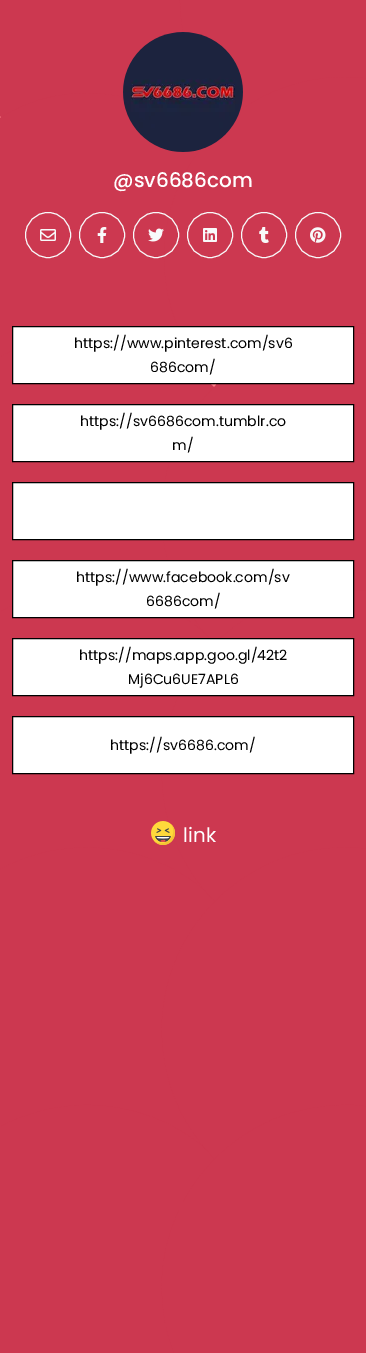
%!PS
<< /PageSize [366 1353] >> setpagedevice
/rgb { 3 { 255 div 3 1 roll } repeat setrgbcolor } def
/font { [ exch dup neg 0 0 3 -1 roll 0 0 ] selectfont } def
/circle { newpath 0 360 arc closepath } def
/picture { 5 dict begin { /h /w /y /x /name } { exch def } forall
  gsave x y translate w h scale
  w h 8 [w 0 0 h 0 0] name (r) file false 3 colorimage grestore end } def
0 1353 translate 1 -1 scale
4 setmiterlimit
255 255 255 rgb
0 0 366 1353 rectfill
(img/1.rgb) 0 0 366 1353 picture
(img/2.rgb) 123 32 120 120 picture
248 249 250 rgb
48 235 22.5 circle stroke
(img/3.rgb) 40 229 16 12 picture
102 235 22.5 circle stroke
(img/4.rgb) 97 227 10 16 picture
156 235 22.5 circle stroke
(img/5.rgb) 148 228 16 14 picture
210 235 22.5 circle stroke
(img/6.rgb) 203 228 14 14 picture
264 235 22.5 circle stroke
(img/7.rgb) 259 227 10 16 picture
318 235 22.5 circle stroke
(img/8.rgb) 310 227 16 16 picture
255 255 255 rgb
12.5 326.5 moveto 353.5 326.5 lineto 353.5 383.5 lineto 12.5 383.5 lineto closepath gsave fill grestore
0 0 0 rgb
stroke
255 255 255 rgb
12.5 404.5 moveto 353.5 404.5 lineto 353.5 461.5 lineto 12.5 461.5 lineto closepath gsave fill grestore
0 0 0 rgb
stroke
255 255 255 rgb
12.5 482.5 moveto 353.5 482.5 lineto 353.5 539.5 lineto 12.5 539.5 lineto closepath gsave fill grestore
0 0 0 rgb
stroke
255 255 255 rgb
12.5 560.5 moveto 353.5 560.5 lineto 353.5 617.5 lineto 12.5 617.5 lineto closepath gsave fill grestore
0 0 0 rgb
stroke
255 255 255 rgb
12.5 638.5 moveto 353.5 638.5 lineto 353.5 695.5 lineto 12.5 695.5 lineto closepath gsave fill grestore
0 0 0 rgb
stroke
255 255 255 rgb
12.5 716.5 moveto 353.5 716.5 lineto 353.5 773.5 lineto 12.5 773.5 lineto closepath gsave fill grestore
0 0 0 rgb
stroke
(img/9.rgb) 151 821 24 24 picture
/Poppins-Medium 20 font
255 255 255 rgb
113 187 moveto (@sv6686com) show
/Poppins-Regular 14.1 font
0 0 0 rgb
[
  [(https://www.pinterest.com/sv6) 74 348]
  [(686com/) 150 372]
  [(https://sv6686com.tumblr.co) 80 426]
  [(m/) 172 450]
  [(https://www.facebook.com/sv) 76 582]
  [(6686com/) 146 606]
  [(https://maps.app.goo.gl/42t2) 79 660]
  [(Mj6Cu6UE7APL6) 128 684]
  [(https://sv6686.com/) 110 750]
] { aload pop moveto show } forall
/Poppins-Regular 20 font
255 255 255 rgb
183 842 moveto (link) show
showpage
